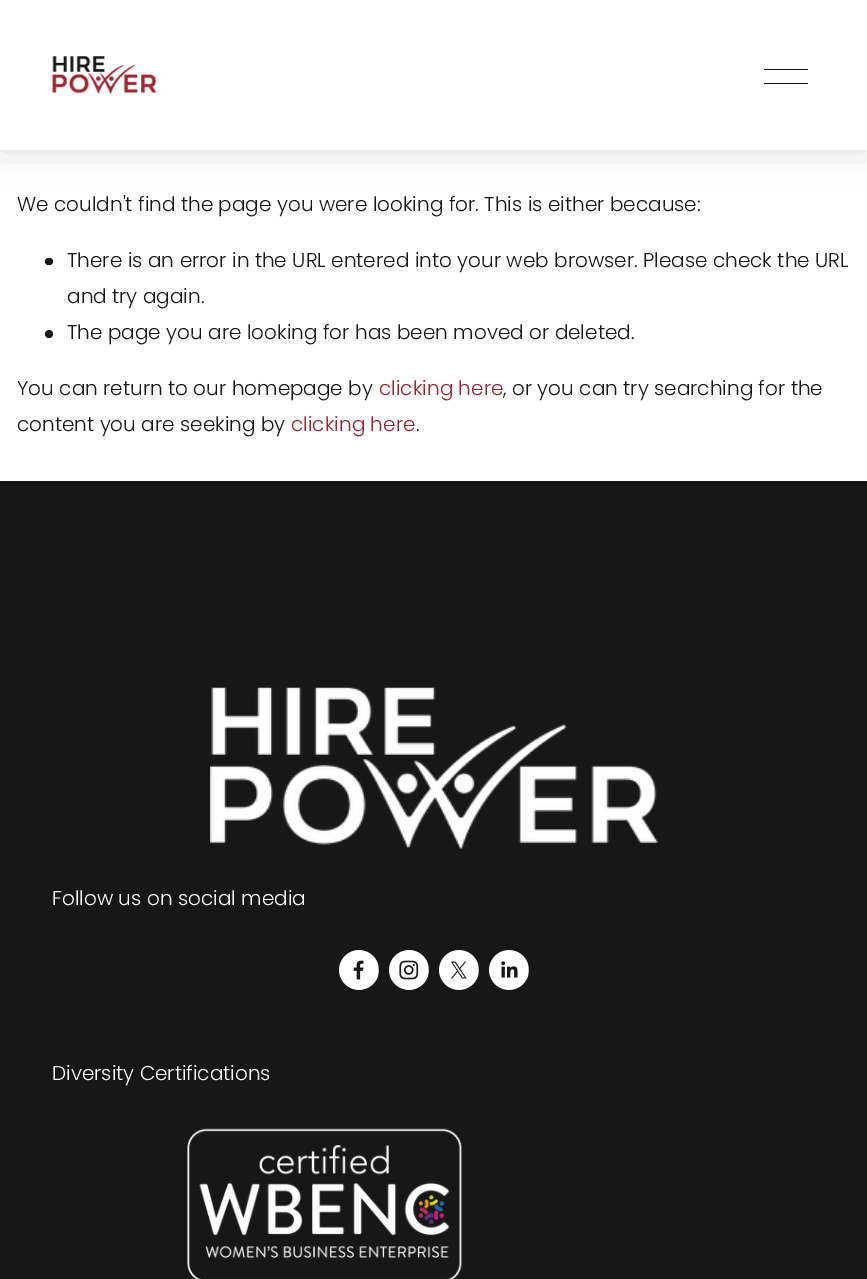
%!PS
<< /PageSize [867 1279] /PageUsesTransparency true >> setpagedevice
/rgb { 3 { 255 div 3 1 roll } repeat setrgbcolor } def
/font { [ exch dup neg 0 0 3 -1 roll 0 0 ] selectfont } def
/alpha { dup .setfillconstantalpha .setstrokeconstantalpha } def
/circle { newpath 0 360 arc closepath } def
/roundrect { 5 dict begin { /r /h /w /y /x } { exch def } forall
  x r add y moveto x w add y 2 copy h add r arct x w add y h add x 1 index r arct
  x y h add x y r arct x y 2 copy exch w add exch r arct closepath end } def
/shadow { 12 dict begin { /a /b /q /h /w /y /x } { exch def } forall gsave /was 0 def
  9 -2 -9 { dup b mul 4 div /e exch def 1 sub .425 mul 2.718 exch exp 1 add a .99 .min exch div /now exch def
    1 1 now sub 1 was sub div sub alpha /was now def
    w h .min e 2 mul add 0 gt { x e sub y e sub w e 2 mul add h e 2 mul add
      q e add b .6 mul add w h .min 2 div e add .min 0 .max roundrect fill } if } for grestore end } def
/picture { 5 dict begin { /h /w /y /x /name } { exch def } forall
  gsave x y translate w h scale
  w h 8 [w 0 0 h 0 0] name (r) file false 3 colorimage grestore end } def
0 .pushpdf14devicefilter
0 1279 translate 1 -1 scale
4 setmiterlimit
255 255 255 rgb
0 0 867 1279 rectfill
gsave
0 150 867 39 rectclip
220 220 220 rgb
0 0 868 150 0 19 1 shadow
grestore
(img/1.rgb) 52 56 105 38 picture
23 23 23 rgb
764 69 44 1 rectfill
764 83 44 1 rectfill
45 258 8 7 3.5 roundrect fill
49 334 4 circle fill
0 481 867 798 rectfill
(img/2.rgb) 210 687 448 162 picture
(img/3.rgb) 339 950 40 40 picture
(img/4.rgb) 389 950 40 40 picture
(img/5.rgb) 439 950 40 40 picture
(img/6.rgb) 489 950 40 40 picture
(img/7.rgb) 187 1128 275 151 picture
/Poppins-Light 20 font
[
  [(We couldn't find the page you were looking for. This is either because:) 17 211]
  [(There is an error in the URL entered into your web browser. Please check the URL) 67 267]
  [(and try again.) 67 303]
  [(The page you are looking for has been moved or deleted.) 67 339]
  [(You can return to our homepage by) 17 395]
] { aload pop moveto show } forall
155 38 46 rgb
379 395 moveto (clicking here) show
23 23 23 rgb
503 395 moveto (, or you can try searching for the) show
17 431 moveto (content you are seeking by) show
155 38 46 rgb
291 431 moveto (clicking here) show
23 23 23 rgb
416 431 moveto (.) show
255 255 255 rgb
52 905 moveto (Follow us on social media) show
52 1080 moveto (Diversity Certifications) show
.poppdf14devicefilter showpage
